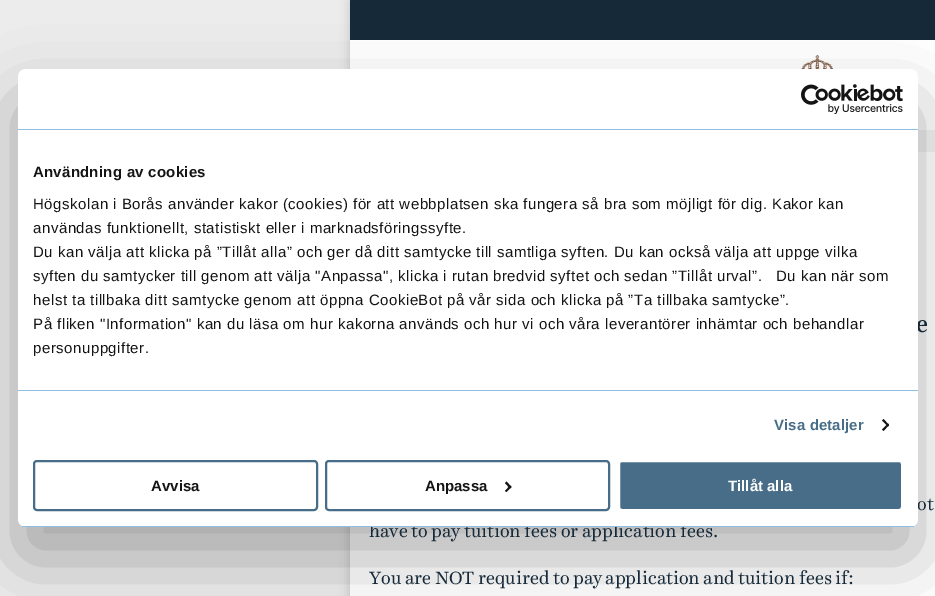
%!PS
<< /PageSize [935 596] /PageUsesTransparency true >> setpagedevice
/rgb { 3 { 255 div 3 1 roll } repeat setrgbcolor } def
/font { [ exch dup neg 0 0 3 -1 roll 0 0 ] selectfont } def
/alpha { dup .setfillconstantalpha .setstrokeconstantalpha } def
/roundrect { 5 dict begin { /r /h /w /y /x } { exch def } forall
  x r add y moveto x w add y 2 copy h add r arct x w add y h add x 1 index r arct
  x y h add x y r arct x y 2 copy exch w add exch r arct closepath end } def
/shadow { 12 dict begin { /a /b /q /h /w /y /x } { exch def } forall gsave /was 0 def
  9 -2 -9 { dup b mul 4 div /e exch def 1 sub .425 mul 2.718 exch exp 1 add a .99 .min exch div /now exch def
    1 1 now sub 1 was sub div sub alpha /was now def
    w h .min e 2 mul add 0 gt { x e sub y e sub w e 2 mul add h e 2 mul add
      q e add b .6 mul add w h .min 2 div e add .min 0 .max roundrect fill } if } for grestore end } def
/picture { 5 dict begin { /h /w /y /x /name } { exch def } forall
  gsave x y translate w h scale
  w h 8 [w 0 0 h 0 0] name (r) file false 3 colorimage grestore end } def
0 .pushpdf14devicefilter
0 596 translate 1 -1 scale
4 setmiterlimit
236 236 236 rgb
0 0 935 596 rectfill
0 0 0 rgb
351 1 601 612 0 5.5 0.2 shadow
[
  [350 152 585 444 255 255 255]
  [350 0 585 40 21 41 56]
  [350 40 585 90 255 255 255]
] { aload pop rgb rectfill } forall
(img/2.rgb) 801 55 33 14 picture
244 244 244 rgb
918 130 17 22 rectfill
0 0 0 rgb
18 101 900 458 8 34 0.3 shadow
/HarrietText-Medium 24 font
21 41 56 rgb
916 332 moveto (e) show
/HarrietText-Regular 18 font
917 510 moveto (ot) show
369 537 moveto (have to pay tuition fees or application fees.) show
255 255 255 rgb
18 69 900 458 8 roundrect fill
71 109 136 rgb
2 setlinewidth
326 461 283 49 3 roundrect stroke
20 20 20 rgb
506.5 481.5 moveto 511.5 487 lineto 510 488.5 lineto 505 483 lineto closepath fill
510 485.5 moveto 511.5 487 lineto 506.5 492 lineto 505 491 lineto closepath fill
71 109 136 rgb
619 461 283 49 3 roundrect gsave fill grestore
255 255 255 rgb
stroke
/LiberationSans-Bold 15 font
728 491 moveto (Tillåt alla) show
20 20 20 rgb
425 491 moveto (Anpassa) show
71 109 136 rgb
34 461 283 49 3 roundrect stroke
20 20 20 rgb
151 491 moveto (Avvisa) show
gsave
18 69 900 458 8 roundrect clip newpath
146 191 224 rgb
18 526 900 1 rectfill
grestore
883.5 419 moveto 889 425 lineto 888 426.5 lineto 882 420.5 lineto closepath fill
888 423.5 moveto 889 425 lineto 883.5 431 lineto 882 429.5 lineto closepath fill
/LiberationSans-Regular 15 font
33 353 moveto 0.5 0 (personuppgifter.) ashow
33 329 moveto 0.5 0 (På fliken "Information" kan du läsa om hur kakorna används och hur vi och våra leverantörer inhämtar och behandlar) ashow
33 305 moveto 0.5 0 (helst ta tillbaka ditt samtycke genom att öppna CookieBot på vår sida och klicka på ”Ta tillbaka samtycke”.) ashow
776 281 moveto 0.5 0 (Du kan när som) ashow
33 281 moveto 0.5 0 (syften du samtycker till genom att välja "Anpassa", klicka i rutan bredvid syftet och sedan ”Tillåt urval”.) ashow
33 257 moveto 0.5 0 (Du kan välja att klicka på ”Tillåt alla” och ger då ditt samtycke till samtliga syften. Du kan också välja att uppge vilka) ashow
33 233 moveto 0.5 0 (användas funktionellt, statistiskt eller i marknadsföringssyfte.) ashow
33 209 moveto 0.5 0 (Högskolan i Borås använder kakor \(cookies\) för att webbplatsen ska fungera så bra som möjligt för dig. Kakor kan) ashow
/LiberationSans-Bold 15 font
33 177 moveto 0.25 0 (Användning av cookies) ashow
146 191 224 rgb
18 390 900 1 rectfill
71 109 136 rgb
774 430 moveto 0.1 0 (Visa detaljer) ashow
(img/1.rgb) 801 84 102 30 picture
146 191 224 rgb
18 129 900 1 rectfill
/HarrietText-Regular 18 font
21 41 56 rgb
369 584 moveto (You are NOT required to pay application and tuition fees if:) show
.poppdf14devicefilter showpage
